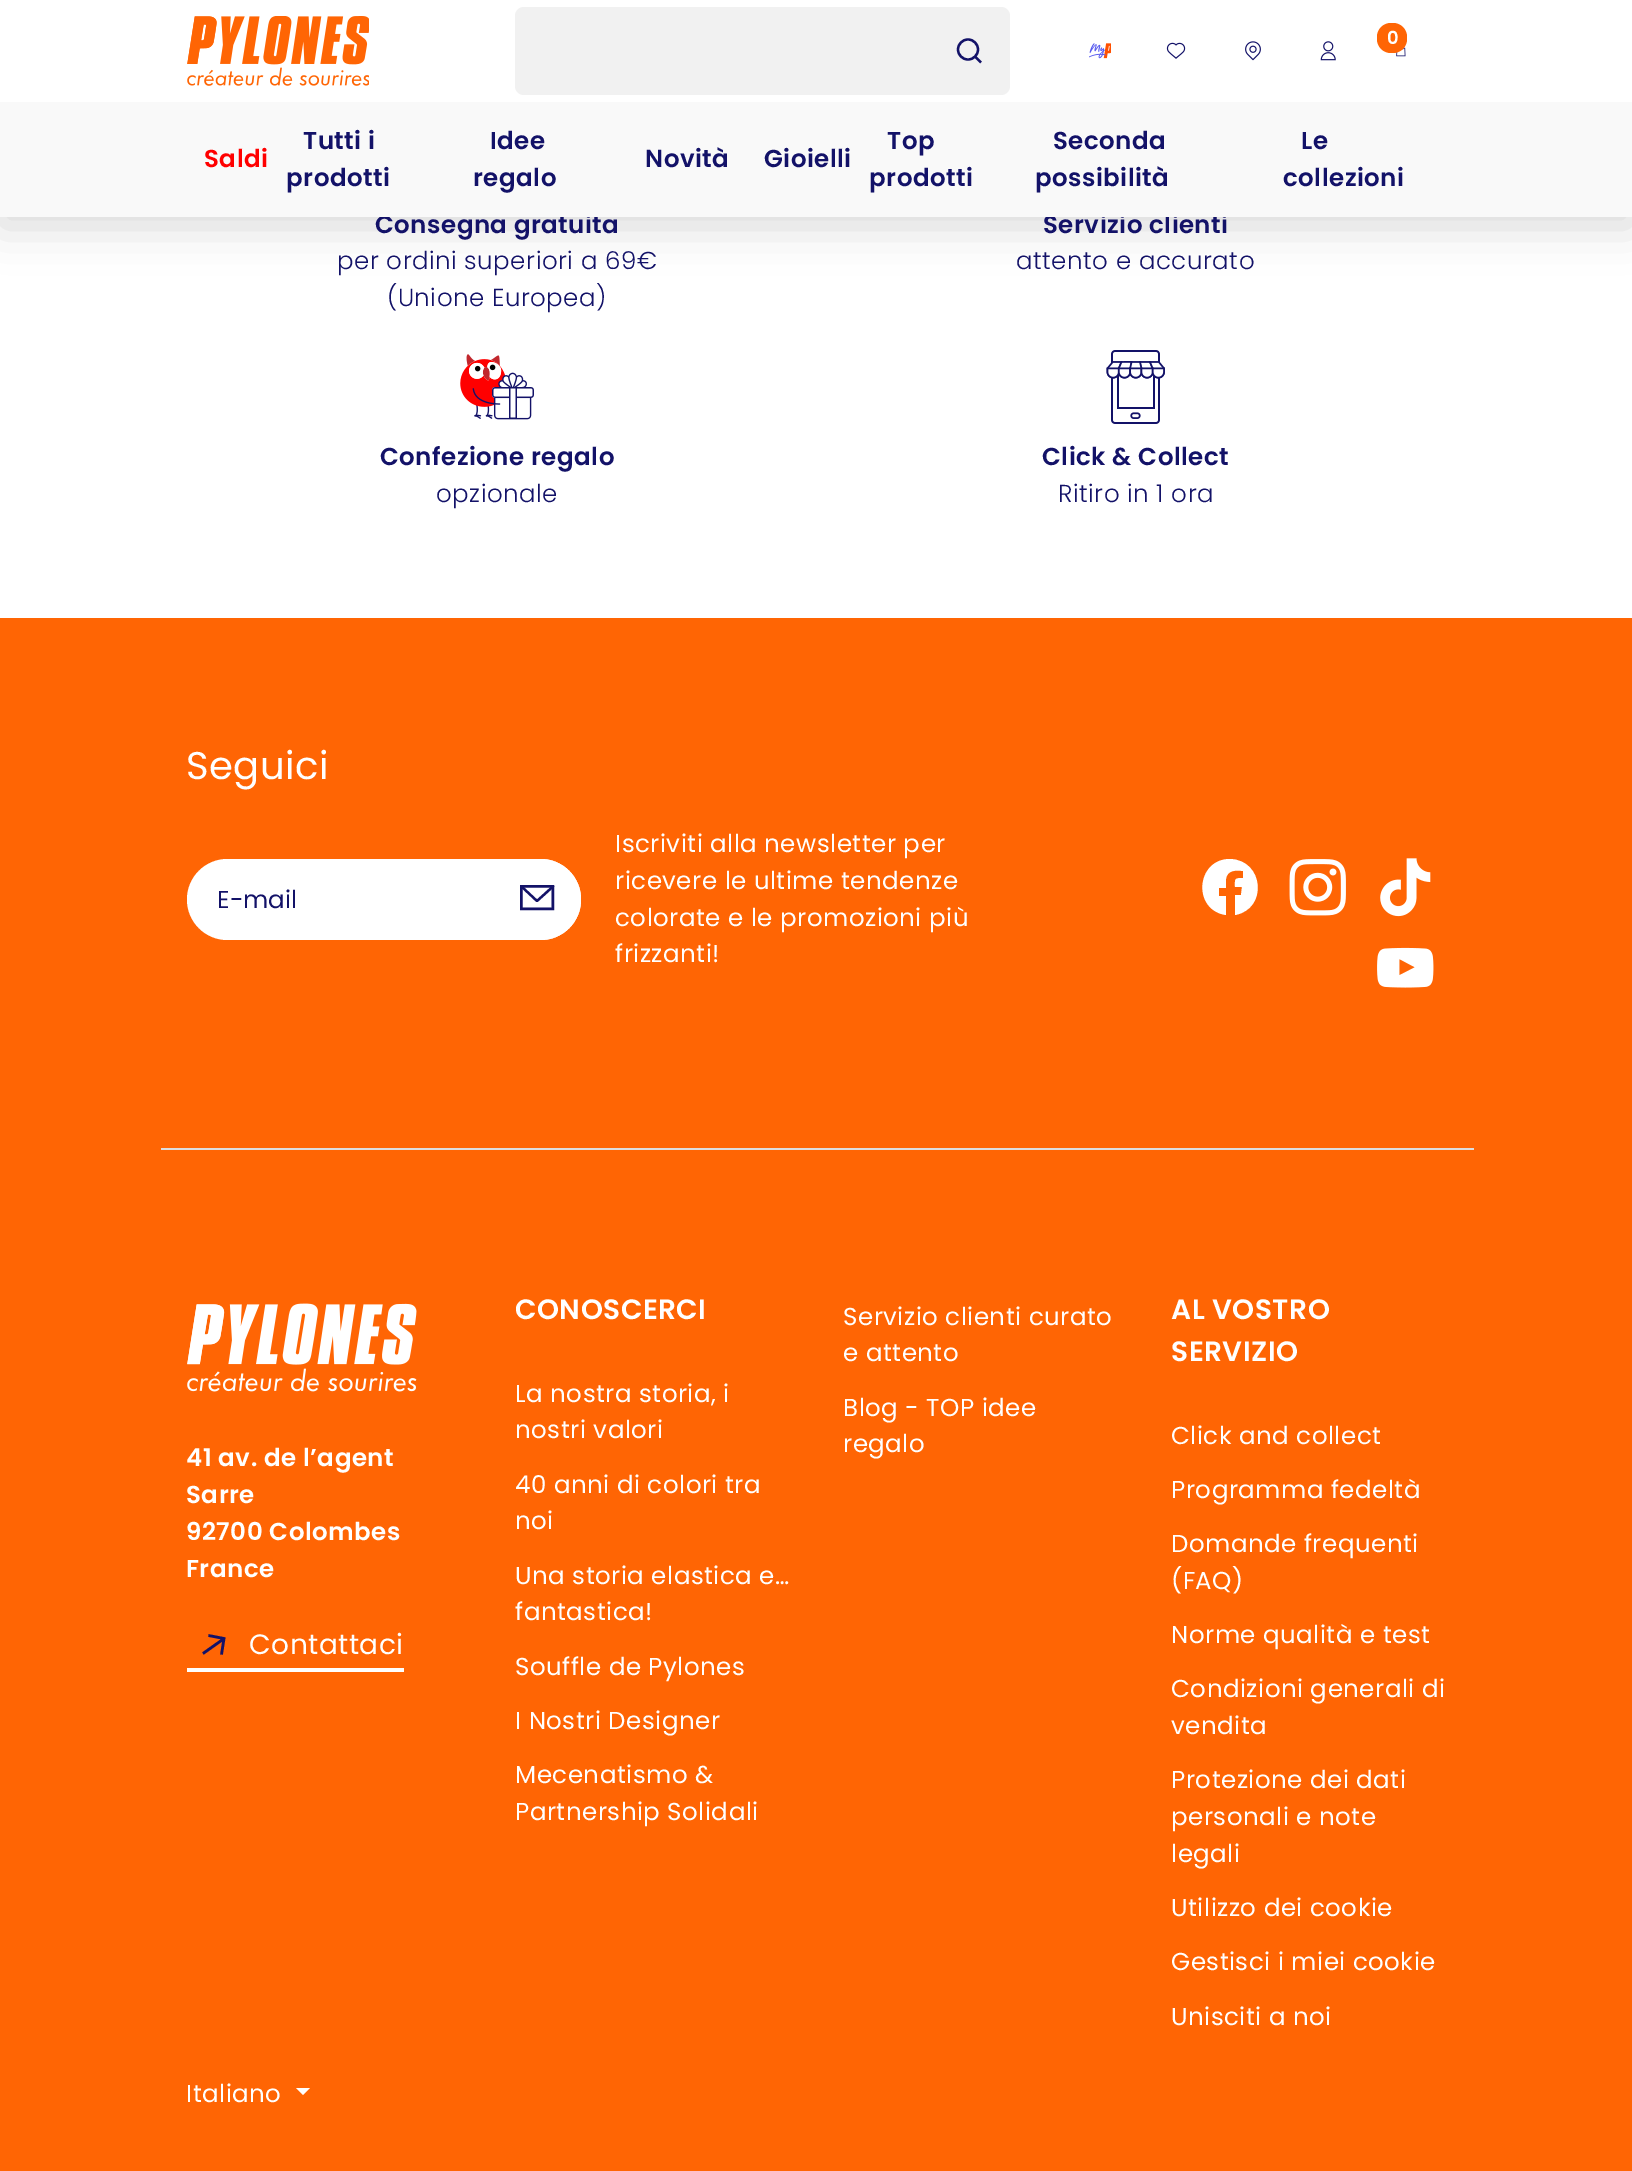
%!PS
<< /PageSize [1632 2171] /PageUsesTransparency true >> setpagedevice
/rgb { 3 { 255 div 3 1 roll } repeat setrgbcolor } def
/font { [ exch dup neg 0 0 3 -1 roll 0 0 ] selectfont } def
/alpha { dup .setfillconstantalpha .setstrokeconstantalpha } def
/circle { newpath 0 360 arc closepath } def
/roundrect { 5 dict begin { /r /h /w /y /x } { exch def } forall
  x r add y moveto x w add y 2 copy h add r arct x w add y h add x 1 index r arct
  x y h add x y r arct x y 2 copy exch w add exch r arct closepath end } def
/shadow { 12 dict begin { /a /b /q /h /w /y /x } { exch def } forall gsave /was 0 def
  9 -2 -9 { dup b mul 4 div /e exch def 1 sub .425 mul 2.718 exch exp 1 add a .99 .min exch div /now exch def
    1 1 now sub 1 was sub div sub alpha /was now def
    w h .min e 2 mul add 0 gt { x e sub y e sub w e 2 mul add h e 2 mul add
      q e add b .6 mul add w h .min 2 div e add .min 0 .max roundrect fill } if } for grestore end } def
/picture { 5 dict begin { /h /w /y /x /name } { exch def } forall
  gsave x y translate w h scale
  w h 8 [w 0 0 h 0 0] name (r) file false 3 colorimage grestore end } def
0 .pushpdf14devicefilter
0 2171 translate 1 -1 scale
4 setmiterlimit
255 255 255 rgb
0 0 1632 2171 rectfill
0 0 0 rgb
0 9 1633 217 0 22 0.15 shadow
255 255 255 rgb
0 0 1632 102 rectfill
(img/1.rgb) 187 16 182 70 picture
241 241 241 rgb
515 7 495 88 9 roundrect fill
19 18 104 rgb
2.3 setlinewidth
968 49.5 10 circle stroke
975 56.5 moveto 981 62.5 lineto stroke
(img/2.rgb) 1396 47 10 10 picture
255 101 4 rgb
1377 23 30 30 14 roundrect fill
(img/3.rgb) 1089 43 22 16 picture
(img/4.rgb) 1166 42 20 17 picture
(img/5.rgb) 1245 41 16 20 picture
(img/6.rgb) 1320 41 16 20 picture
(img/7.rgb) 460 354 74 66 picture
(img/8.rgb) 1106 350 59 74 picture
0 618 1632 1553 rectfill
221 221 221 rgb
161 1148 1313 2 rectfill
255 255 255 rgb
187 859 394 81 40.5 roundrect fill
494 859 87 81 40.5 roundrect fill
19 18 104 rgb
2.5 setlinewidth
521.25 886.25 31.5 22.5 rectstroke
2.3 setlinewidth
1 setlinecap
1 setlinejoin
521.5 886.5 moveto 537 901 lineto 553 886.5 lineto stroke
255 255 255 rgb
1230 859 moveto 1196 859 1192 910 1226 915 curveto 1226 896 lineto 1219 896 lineto 1219 888 lineto 1226 888 lineto 1226 879 lineto 1227 870 1236 870 1243 871 curveto 1243 878 lineto 1234 878 1235 879 1235 887 curveto 1242 887 lineto 1241 895 lineto 1235 895 lineto 1235 915 lineto 1268 909 1264 860 1230 859 curveto closepath fill
(img/9.rgb) 1289 859 57 57 picture
(img/10.rgb) 1380 858 51 59 picture
(img/11.rgb) 1377 947 57 41 picture
(img/12.rgb) 187 1303 230 89 picture
187 1668 217 4 rectfill
19 18 104 rgb
2.6 setlinewidth
0 setlinecap
0 setlinejoin
203 1653.5 moveto 223.5 1639 lineto 221.5 1654.5 moveto 224 1638.5 lineto 208.5 1635.5 lineto stroke
255 255 255 rgb
296 2088 moveto 310 2088 lineto 303 2095 lineto closepath fill
/Poppins-SemiBold 18 font
1387 44 moveto 0.5 0 (0) ashow
/Poppins-SemiBold 24.5 font
19 18 104 rgb
375 233 moveto 0.5 0 (Consegna gratuita) ashow
/Poppins-Light 24.5 font
337 269 moveto 0.5 0 (per ordini superiori a 69€) ashow
387 306 moveto 0.5 0 (\(Unione Europea\)) ashow
/Poppins-SemiBold 24.5 font
1043 233 moveto 0.5 0 (Servizio clienti) ashow
249 249 249 rgb
0 102 1632 115 rectfill
19 18 104 rgb
1283 186 moveto 0.5 0 (collezioni) ashow
1301 149 moveto 0.5 0 (Le) ashow
1035 186 moveto 0.5 0 (possibilità) ashow
1053 149 moveto 0.5 0 (Seconda) ashow
869 186 moveto 0.5 0 (prodotti) ashow
887 149 moveto 0.5 0 (Top) ashow
764 167 moveto 0.5 0 (Gioielli) ashow
645 167 moveto 0.5 0 (Novità) ashow
473 186 moveto 0.5 0 (regalo) ashow
490 149 moveto 0.5 0 (Idee) ashow
286 186 moveto 0.5 0 (prodotti) ashow
303 149 moveto 0.5 0 (Tutti i) ashow
255 0 0 rgb
204 167 moveto 0.5 0 (Saldi) ashow
/Poppins-Light 24.5 font
19 18 104 rgb
1016 269 moveto 0.5 0 (attento e accurato) ashow
/Poppins-SemiBold 24.5 font
380 465 moveto 0.5 0 (Confezione regalo) ashow
/Poppins-Light 24.5 font
436 502 moveto 0.5 0 (opzionale) ashow
/Poppins-SemiBold 24.5 font
1042 465 moveto 0.5 0 (Click & Collect) ashow
/Poppins-Light 24.5 font
1058 502 moveto 0.5 0 (Ritiro in 1 ora) ashow
/Poppins-Regular 38.5 font
255 255 255 rgb
186 779 moveto 0.5 0 (Seguici) ashow
/Poppins-Regular 24.5 font
19 18 104 rgb
217 908 moveto (E-mail) show
255 255 255 rgb
615 852 moveto 0.5 0 (Iscriviti alla newsletter per) ashow
615 889 moveto 0.5 0 (ricevere le ultime tendenze) ashow
615 926 moveto 0.5 0 (colorate e le promozioni più) ashow
615 962 moveto 0.5 0 (frizzanti!) ashow
/Poppins-SemiBold 28 font
515 1319 moveto 0.5 0 (CONOSCERCI) ashow
/Poppins-Regular 24.5 font
515 1402 moveto 0.5 0 (La nostra storia, i) ashow
515 1438 moveto 0.5 0 (nostri valori) ashow
515 1493 moveto 0.5 0 (40 anni di colori tra) ashow
515 1529 moveto 0.5 0 (noi) ashow
515 1584 moveto 0.5 0 (Una storia elastica e…) ashow
515 1620 moveto 0.5 0 (fantastica!) ashow
515 1675 moveto 0.5 0 (Souffle de Pylones) ashow
515 1729 moveto 0.5 0 (I Nostri Designer) ashow
515 1783 moveto 0.5 0 (Mecenatismo &) ashow
515 1820 moveto 0.5 0 (Partnership Solidali) ashow
843 1325 moveto 0.5 0 (Servizio clienti curato) ashow
843 1361 moveto 0.5 0 (e attento) ashow
843 1416 moveto 0.5 0 (Blog - TOP idee) ashow
843 1452 moveto 0.5 0 (regalo) ashow
/Poppins-SemiBold 28 font
1171 1319 moveto 0.5 0 (AL VOSTRO) ashow
1171 1361 moveto 0.5 0 (SERVIZIO) ashow
/Poppins-Regular 24.5 font
1171 1444 moveto 0.5 0 (Click and collect) ashow
1171 1498 moveto 0.5 0 (Programma fedeltà) ashow
1171 1552 moveto 0.5 0 (Domande frequenti) ashow
1171 1589 moveto 0.5 0 (\(FAQ\)) ashow
1171 1643 moveto 0.5 0 (Norme qualità e test) ashow
1171 1697 moveto 0.5 0 (Condizioni generali di) ashow
1171 1734 moveto 0.5 0 (vendita) ashow
1171 1788 moveto 0.5 0 (Protezione dei dati) ashow
1171 1825 moveto 0.5 0 (personali e note) ashow
1171 1862 moveto 0.5 0 (legali) ashow
1171 1916 moveto 0.5 0 (Utilizzo dei cookie) ashow
1171 1970 moveto 0.5 0 (Gestisci i miei cookie) ashow
1171 2025 moveto 0.5 0 (Unisciti a noi) ashow
/Poppins-SemiBold 24.5 font
186 1466 moveto 0.5 0 (41 av. de l’agent) ashow
186 1503 moveto 0.5 0 (Sarre) ashow
186 1540 moveto 0.5 0 (92700 Colombes) ashow
186 1577 moveto 0.5 0 (France) ashow
/Poppins-Regular 28 font
249 1654 moveto 0.5 0 (Contattaci) ashow
/Poppins-Regular 24.5 font
186 2102 moveto 0.5 0 (Italiano) ashow
.poppdf14devicefilter showpage
